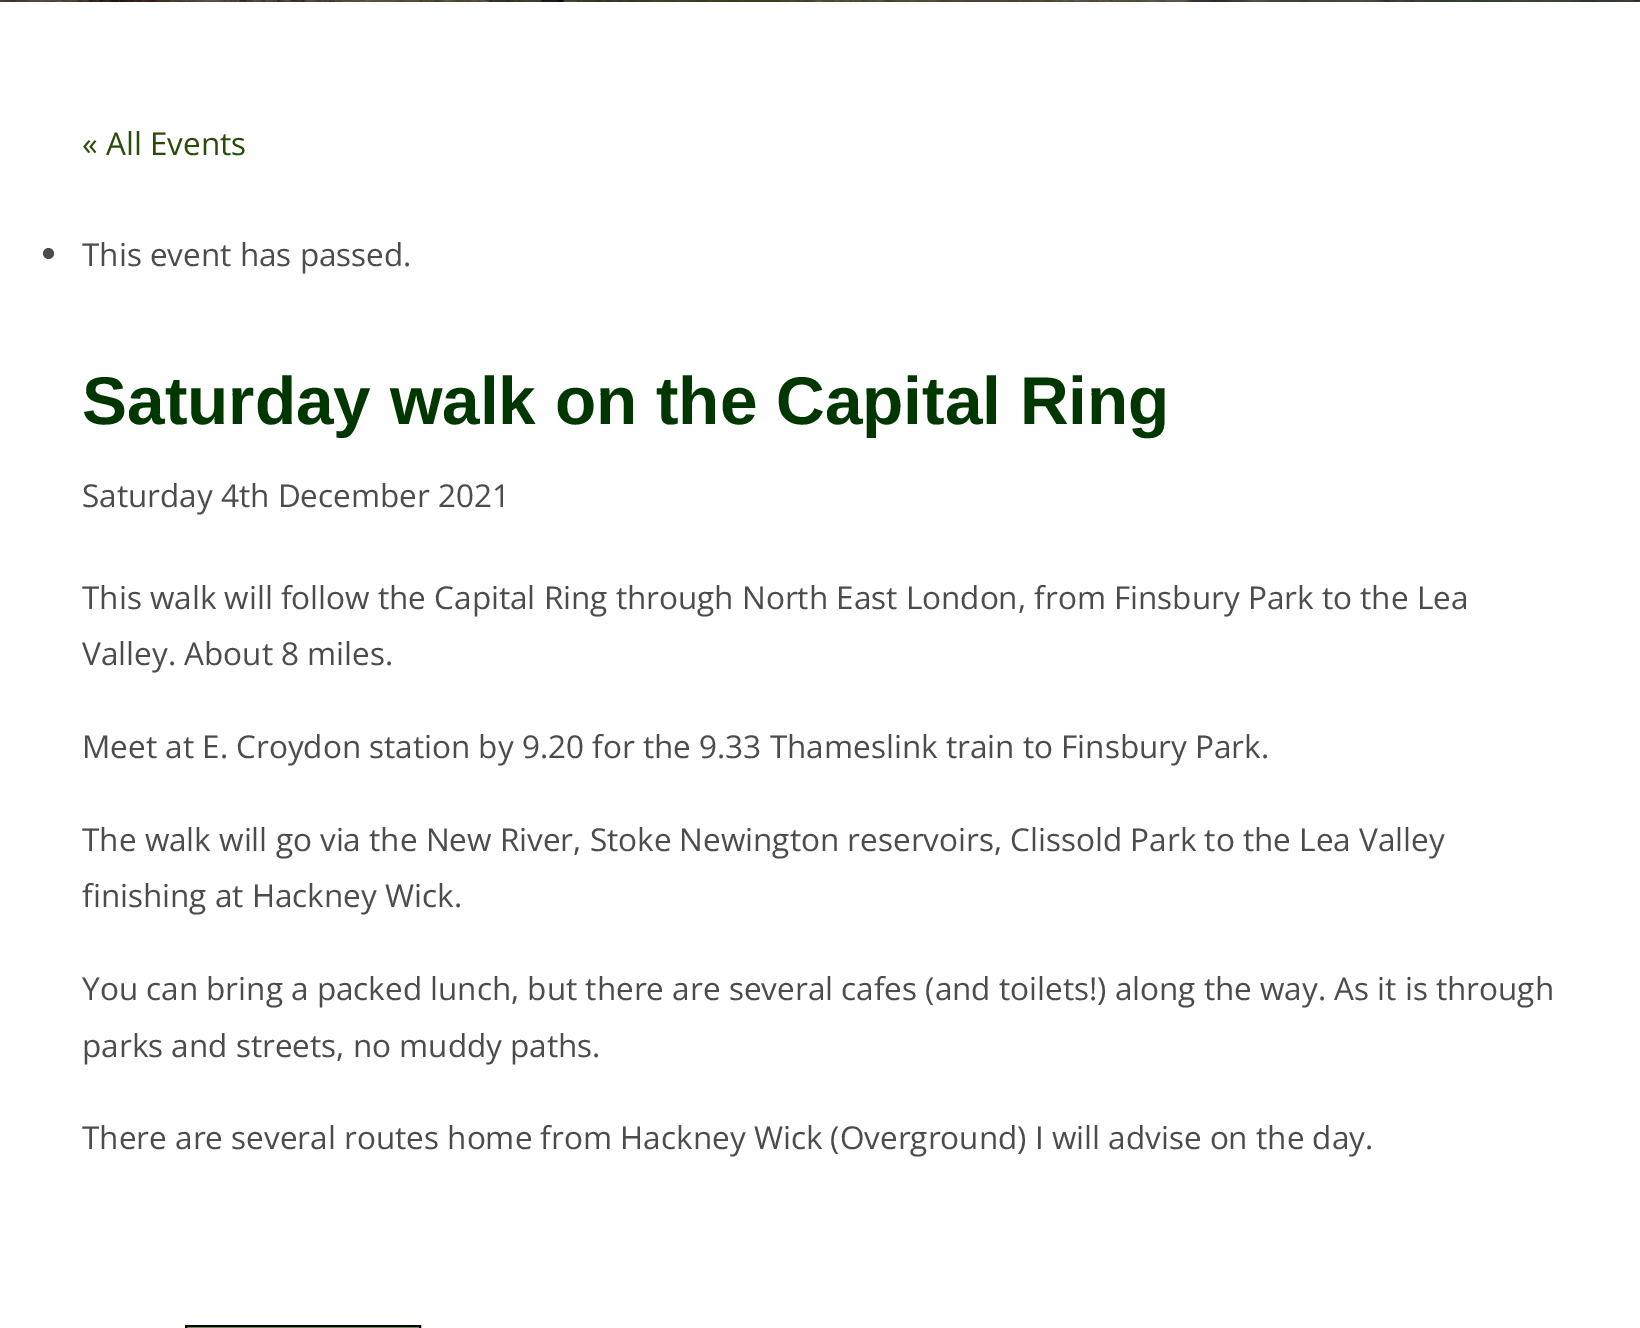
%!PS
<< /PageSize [1640 1328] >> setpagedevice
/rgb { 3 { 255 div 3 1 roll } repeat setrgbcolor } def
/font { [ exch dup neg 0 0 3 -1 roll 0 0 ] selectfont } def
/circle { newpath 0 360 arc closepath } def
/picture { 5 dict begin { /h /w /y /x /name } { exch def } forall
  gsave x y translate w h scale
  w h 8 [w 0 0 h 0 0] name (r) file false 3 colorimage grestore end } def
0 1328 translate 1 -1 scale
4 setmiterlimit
255 255 255 rgb
0 0 1640 1328 rectfill
(img/1.rgb) 0 0 1640 2 picture
76 76 76 rgb
48.5 253.5 5.5 circle fill
146 208 80 rgb
186 1326 moveto 420 1326 lineto 420 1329 lineto 186 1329 lineto closepath gsave fill grestore
0 0 0 rgb
2 setlinewidth
stroke
/OpenSans-Regular 31.5 font
41 76 8 rgb
82 155 moveto (« All Events) show
76 76 76 rgb
82 266 moveto (This event has passed.) show
/LiberationSans-Bold 67.5 font
0 54 0 rgb
82 424 moveto (Saturday walk on the Capital Ring) show
/OpenSans-Regular 31.5 font
76 76 76 rgb
[
  [(Saturday 4th December 2021) 82 507]
  [(This walk will follow the Capital Ring through North East London, from Finsbury Park to the Lea) 82 609]
  [(Valley. About 8 miles.) 82 665]
  [(Meet at E. Croydon station by 9.20 for the 9.33 Thameslink train to Finsbury Park.) 82 758]
  [(The walk will go via the New River, Stoke Newington reservoirs, Clissold Park to the Lea Valley) 82 851]
  [(finishing at Hackney Wick.) 82 907]
  [(You can bring a packed lunch, but there are several cafes \(and toilets!\) along the way. As it is through) 82 1000]
  [(parks and streets, no muddy paths.) 82 1057]
  [(There are several routes home from Hackney Wick \(Overground\) I will advise on the day.) 82 1149]
] { aload pop moveto show } forall
showpage
